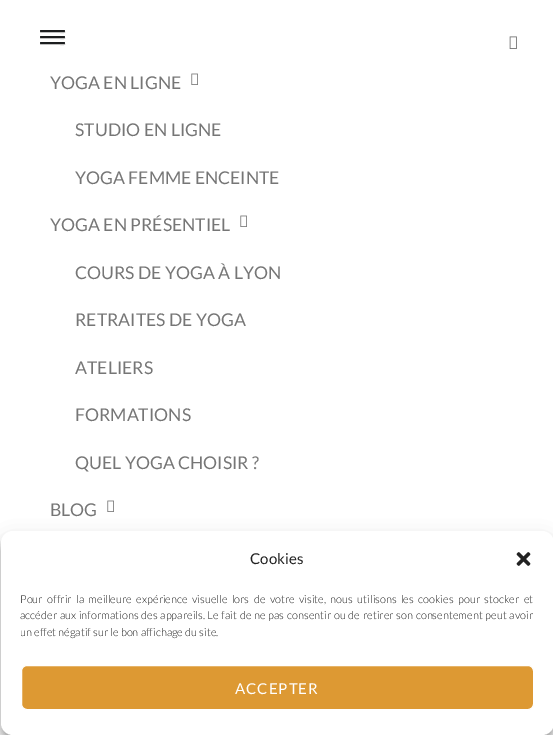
%!PS
<< /PageSize [553 735] /PageUsesTransparency true >> setpagedevice
/rgb { 3 { 255 div 3 1 roll } repeat setrgbcolor } def
/font { [ exch dup neg 0 0 3 -1 roll 0 0 ] selectfont } def
/alpha { dup .setfillconstantalpha .setstrokeconstantalpha } def
/roundrect { 5 dict begin { /r /h /w /y /x } { exch def } forall
  x r add y moveto x w add y 2 copy h add r arct x w add y h add x 1 index r arct
  x y h add x y r arct x y 2 copy exch w add exch r arct closepath end } def
/shadow { 12 dict begin { /a /b /q /h /w /y /x } { exch def } forall gsave /was 0 def
  9 -2 -9 { dup b mul 4 div /e exch def 1 sub .425 mul 2.718 exch exp 1 add a .99 .min exch div /now exch def
    1 1 now sub 1 was sub div sub alpha /was now def
    w h .min e 2 mul add 0 gt { x e sub y e sub w e 2 mul add h e 2 mul add
      q e add b .6 mul add w h .min 2 div e add .min 0 .max roundrect fill } if } for grestore end } def
/picture { 5 dict begin { /h /w /y /x /name } { exch def } forall
  gsave x y translate w h scale
  w h 8 [w 0 0 h 0 0] name (r) file false 3 colorimage grestore end } def
0 .pushpdf14devicefilter
0 735 translate 1 -1 scale
4 setmiterlimit
255 255 255 rgb
0 0 553 735 rectfill
(img/1.rgb) 509 36 8 13 picture
191 191 191 rgb
40 31.5 moveto 40 32 40 33 41 33 curveto 60 33 lineto 63 33 66 33.5 65 31.5 curveto 64 32 lineto 41 32 lineto closepath fill
28 30 31 rgb
40 30 25 2 1 roundrect fill
191 191 191 rgb
40 37.5 moveto 40 38 40 39 41 39 curveto 60 39 lineto 63 39 66 39.5 65 37.5 curveto 64 38 lineto 41 38 lineto closepath fill
28 30 31 rgb
40 36 25 2 1 roundrect fill
191 191 191 rgb
40 43.5 moveto 40 44 40 45 41 45 curveto 60 45 lineto 63 45 66 45.5 65 43.5 curveto 64 44 lineto 41 44 lineto closepath fill
28 30 31 rgb
40 42 25 2 1 roundrect fill
(img/2.rgb) 191 73 7 12 picture
(img/2.rgb) 240 215 7 12 picture
(img/2.rgb) 107 500 7 12 picture
gsave
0 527 moveto 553 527 lineto 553 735 lineto 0 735 lineto closepath 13 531 moveto 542 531 lineto 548.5 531 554 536.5 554 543 curveto 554 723 lineto 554 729.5 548.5 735 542 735 curveto 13 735 lineto 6.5 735 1 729.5 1 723 curveto 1 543 lineto 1 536.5 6.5 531 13 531 curveto closepath eoclip newpath
0 0 0 rgb
1 537 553 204 12 3 0.23 shadow
grestore
gsave
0 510 moveto 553 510 lineto 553 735 lineto 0 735 lineto closepath 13 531 moveto 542 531 lineto 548.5 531 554 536.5 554 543 curveto 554 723 lineto 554 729.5 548.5 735 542 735 curveto 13 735 lineto 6.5 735 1 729.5 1 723 curveto 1 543 lineto 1 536.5 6.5 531 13 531 curveto closepath eoclip newpath
0 0 0 rgb
1 541 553 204 12 10 0.19 shadow
grestore
255 255 255 rgb
1 531 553 204 12 roundrect fill
(img/3.rgb) 516 552 15 14 picture
221 153 51 rgb
21.5 665.5 512 44 5.5 roundrect gsave fill grestore
255 255 255 rgb
stroke
/Lato-Regular 17.6 font
118 118 118 rgb
[
  [(YOGA EN LIGNE) 50 89]
  [(STUDIO EN LIGNE) 75 136]
  [(YOGA FEMME ENCEINTE) 75 184]
  [(YOGA EN PRÉSENTIEL) 50 231]
  [(COURS DE YOGA À LYON) 75 279]
  [(RETRAITES DE YOGA) 75 326]
  [(ATELIERS) 75 374]
  [(FORMATIONS) 75 421]
  [(QUEL YOGA CHOISIR ?) 75 469]
  [(BLOG) 50 516]
] { aload pop moveto show } forall
/Lato-Regular 15 font
34 34 34 rgb
250 564 moveto (Cookies) show
/Lato-Light 11 font
20 603 moveto 2.25 0 32 (Pour offrir la meilleure expérience visuelle lors de votre visite, nous utilisons les cookies pour stocker et) widthshow
20 619 moveto 0.6 0 32 (accéder aux informations des appareils. Le fait de ne pas consentir ou de retirer son consentement peut avoir) widthshow
gsave
21 591 513 54 rectclip
20 636 moveto (un effet négatif sur le bon affichage du site.) show
grestore
/Lato-Regular 15 font
255 255 255 rgb
235 694 moveto 1 0 (ACCEPTER) ashow
.poppdf14devicefilter showpage
